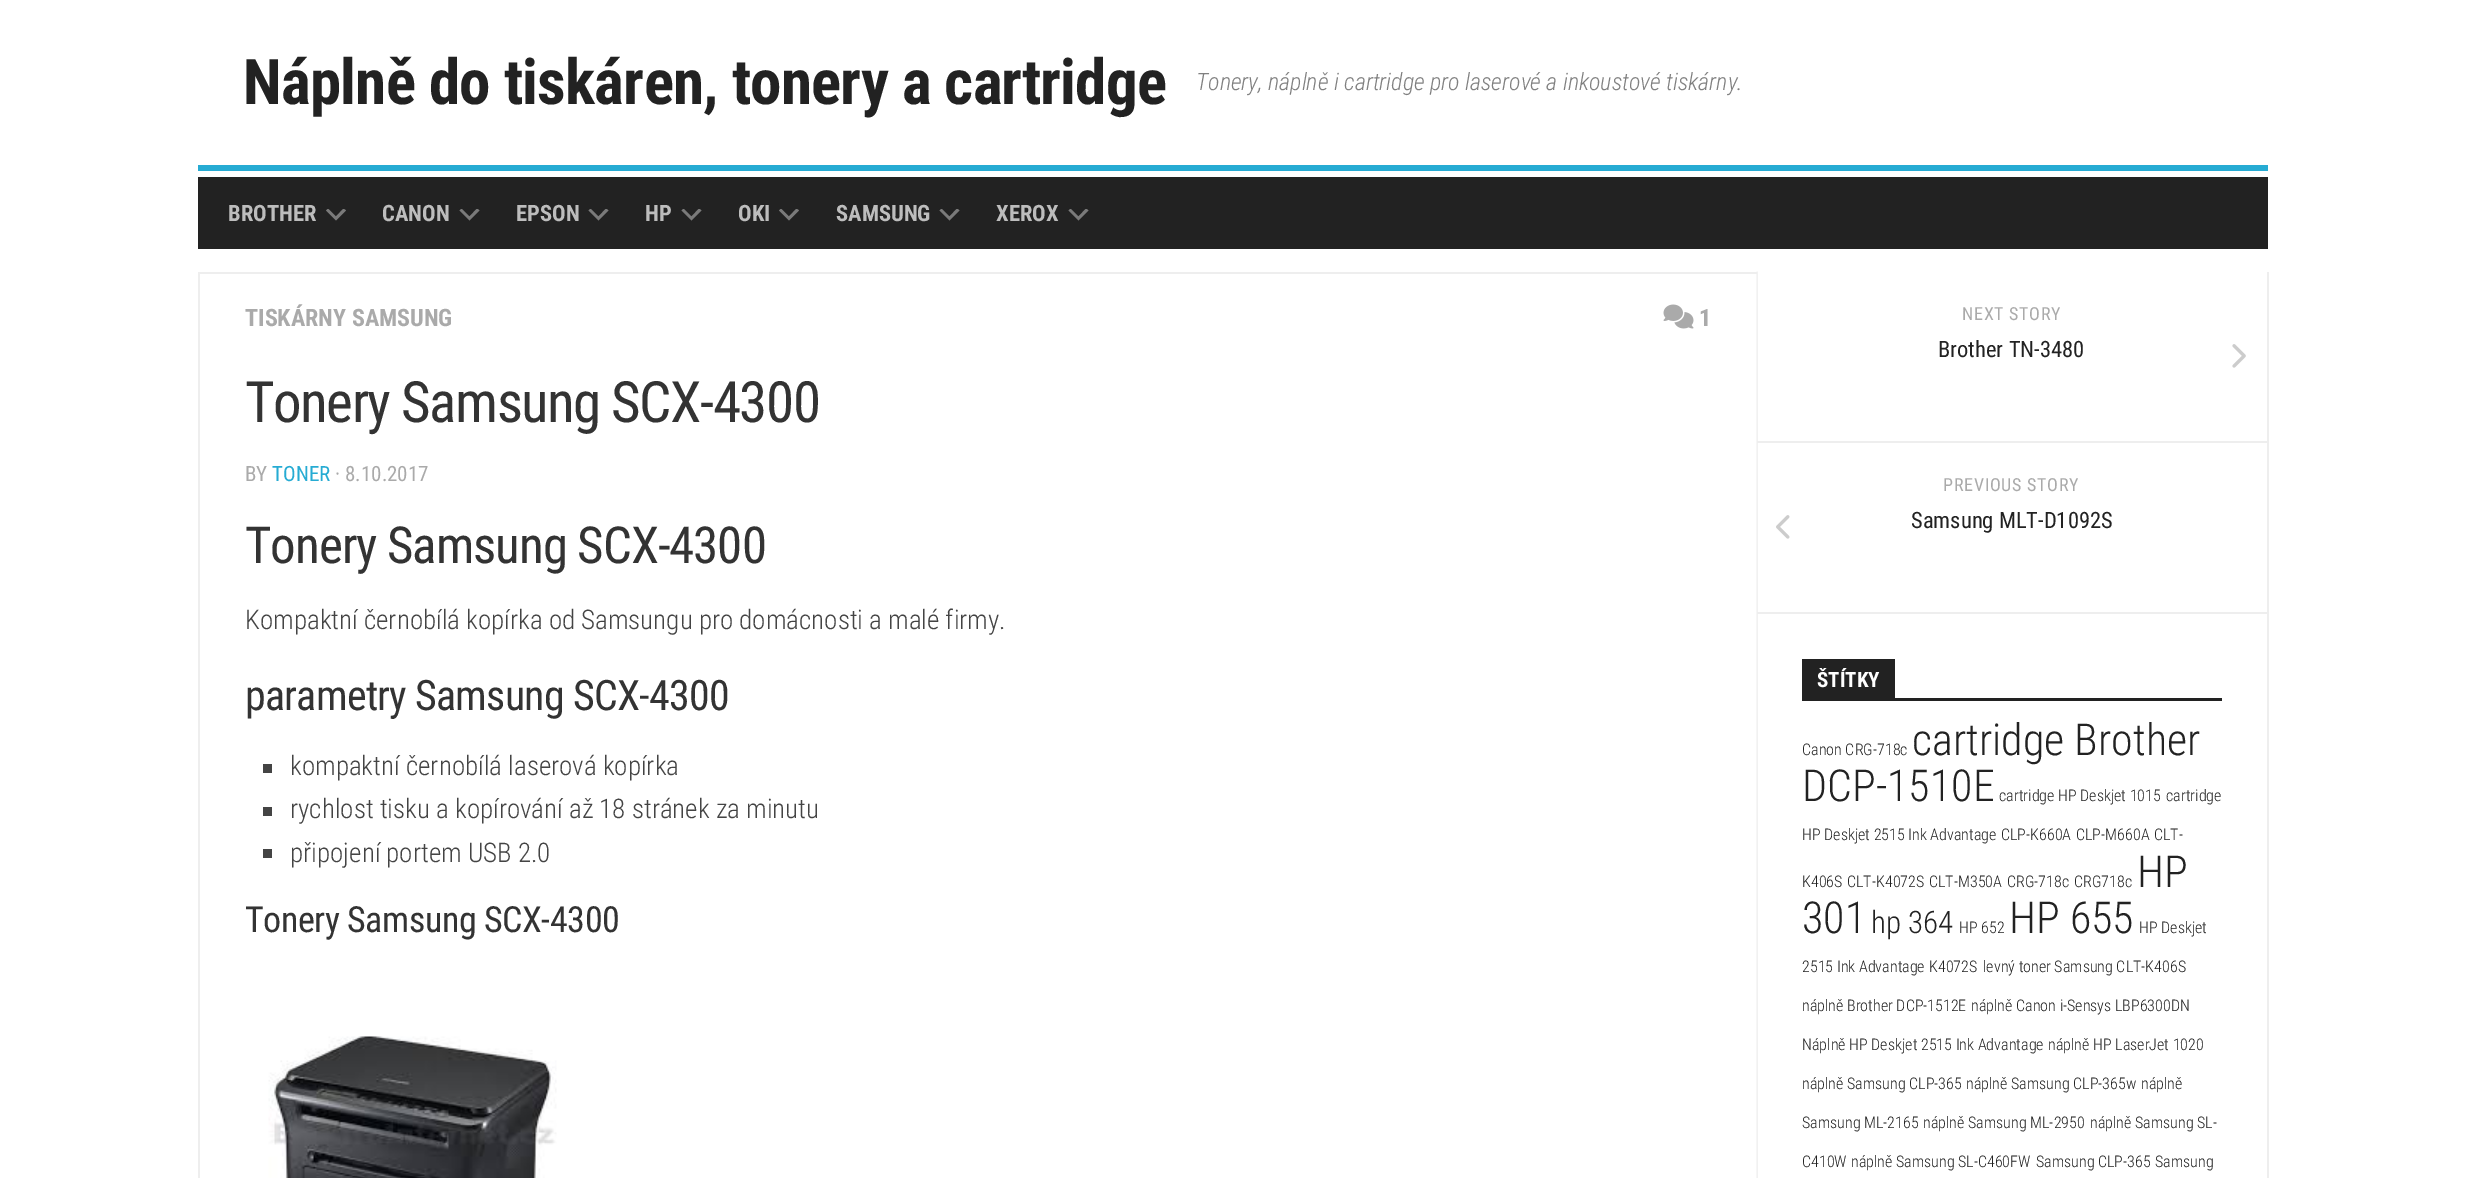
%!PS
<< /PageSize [2465 1178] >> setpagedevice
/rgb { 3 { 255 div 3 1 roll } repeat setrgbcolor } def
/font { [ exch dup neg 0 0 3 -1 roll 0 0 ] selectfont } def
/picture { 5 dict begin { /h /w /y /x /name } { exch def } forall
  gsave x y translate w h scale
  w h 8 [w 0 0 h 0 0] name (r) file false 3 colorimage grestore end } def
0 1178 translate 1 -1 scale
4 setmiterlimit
255 255 255 rgb
0 0 2465 1178 rectfill
38 171 211 rgb
198 165 2070 6 rectfill
34 34 34 rgb
198 177 2070 72 rectfill
gsave
326 209 21 12 rectclip
122 122 122 rgb
336 216.5 moveto 343.5 208.5 lineto 346 210.5 lineto 336 220.5 lineto 326 210.5 lineto 328 208.5 lineto closepath eofill
grestore
gsave
459 209 21 12 rectclip
122 122 122 rgb
469.5 216.5 moveto 477 208.5 lineto 479.5 210.5 lineto 469.5 220.5 lineto 459.5 210.5 lineto 461.5 208.5 lineto closepath eofill
grestore
gsave
588 209 21 12 rectclip
122 122 122 rgb
598.5 216.5 moveto 606 208.5 lineto 608.5 210.5 lineto 598.5 220.5 lineto 588.5 210.5 lineto 590.5 208.5 lineto closepath eofill
grestore
gsave
681 209 21 12 rectclip
122 122 122 rgb
691.5 216.5 moveto 699 208.5 lineto 701.5 210.5 lineto 691.5 220.5 lineto 681.5 210.5 lineto 683.5 208.5 lineto closepath eofill
grestore
gsave
779 209 21 12 rectclip
122 122 122 rgb
789 216.5 moveto 796.5 208.5 lineto 799 210.5 lineto 789 220.5 lineto 779 210.5 lineto 781 208.5 lineto closepath eofill
grestore
gsave
939 209 21 12 rectclip
122 122 122 rgb
949.5 216.5 moveto 957 208.5 lineto 959.5 210.5 lineto 949.5 220.5 lineto 939.5 210.5 lineto 941.5 208.5 lineto closepath eofill
grestore
gsave
1068 209 21 12 rectclip
122 122 122 rgb
1078.5 216.5 moveto 1086 208.5 lineto 1088.5 210.5 lineto 1078.5 220.5 lineto 1068.5 210.5 lineto 1070.5 208.5 lineto closepath eofill
grestore
238 238 238 rgb
2267 272 2 906 rectfill
198 272 2 906 rectfill
(img/1.rgb) 1756 271 2 907 picture
200 272 1557 2 rectfill
(img/2.rgb) 1663 304 31 25 picture
[
  [263 764 9 9 68 68 68]
  [263 807 9 9 68 68 68]
  [263 849 9 9 68 68 68]
] { aload pop rgb rectfill } forall
(img/3.rgb) 268 1036 289 142 picture
238 238 238 rgb
1757 441 510 2 rectfill
(img/4.rgb) 2232 344 14 24 picture
1757 612 510 2 rectfill
(img/5.rgb) 1776 515 14 24 picture
34 34 34 rgb
1802 698 420 3 rectfill
1802 659 93 39 rectfill
/RobotoCondensed-Bold 63 font
243 104 moveto -0.75 0 (Náplně do tiskáren, tonery a cartridge) ashow
/RobotoCondensed-LightItalic 24 font
128 128 128 rgb
1196 90 moveto (Tonery, náplně i cartridge pro laserové a inkoustové tiskárny.) show
/RobotoCondensed-Bold 22.5 font
189 189 189 rgb
[
  [(BROTHER) 228 221]
  [(CANON) 382 221]
  [(EPSON) 516 221]
  [(HP) 645 221]
  [(OKI) 738 221]
  [(SAMSUNG) 836 221]
  [(XEROX) 996 221]
] { aload pop moveto show } forall
/RobotoCondensed-Bold 24 font
170 170 170 rgb
245 326 moveto (TISKÁRNY SAMSUNG) show
1699 326 moveto (1) show
/RobotoCondensed-Regular 57 font
51 51 51 rgb
245 422 moveto -1.5 0 (Tonery Samsung SCX-4300) ashow
/RobotoCondensed-Regular 21 font
170 170 170 rgb
245 481 moveto (BY) show
38 171 211 rgb
272 481 moveto (TONER) show
170 170 170 rgb
335 481 moveto (· 8.10.2017) show
/RobotoCondensed-Regular 51 font
51 51 51 rgb
245 563 moveto -1.05 0 (Tonery Samsung SCX-4300) ashow
/RobotoCondensed-Light 27 font
68 68 68 rgb
245 629 moveto (Kompaktní černobílá kopírka od Samsungu pro domácnosti a malé firmy.) show
/RobotoCondensed-Regular 42 font
51 51 51 rgb
245 710 moveto -0.75 0 (parametry Samsung SCX-4300) ashow
/RobotoCondensed-Light 27 font
68 68 68 rgb
[
  [(kompaktní černobílá laserová kopírka) 290 775]
  [(rychlost tisku a kopírování až 18 stránek za minutu) 290 818]
  [(připojení portem USB 2.0) 290 862]
] { aload pop moveto show } forall
/RobotoCondensed-Regular 36 font
51 51 51 rgb
245 932 moveto -0.45 0 (Tonery Samsung SCX-4300) ashow
/RobotoCondensed-Regular 18 font
170 170 170 rgb
1962 320 moveto 0.75 0 (NEXT STORY) ashow
/RobotoCondensed-Regular 22.5 font
34 34 34 rgb
1938 357 moveto (Brother TN-3480) show
/RobotoCondensed-Regular 18 font
170 170 170 rgb
1943 491 moveto 0.75 0 (PREVIOUS STORY) ashow
/RobotoCondensed-Regular 22.5 font
34 34 34 rgb
1911 528 moveto (Samsung MLT-D1092S) show
/RobotoCondensed-Bold 21 font
255 255 255 rgb
1817 687 moveto (ŠTÍTKY) show
/RobotoCondensed-Light 16 font
34 34 34 rgb
1802 755 moveto (Canon CRG-718c) show
/RobotoCondensed-Light 44 font
1912 755 moveto (cartridge Brother) show
1802 801 moveto (DCP-1510E) show
/RobotoCondensed-Light 16 font
[
  [(cartridge HP Deskjet 1015) 1999 801]
  [(cartridge) 2166 801]
  [(HP Deskjet 2515 Ink Advantage) 1802 840]
  [(CLP-K660A) 2001 840]
  [(CLP-M660A) 2076 840]
  [(CLT-) 2154 840]
  [(K406S) 1802 887]
  [(CLT-K4072S) 1847 887]
  [(CLT-M350A) 1929 887]
  [(CRG-718c) 2007 887]
  [(CRG718c) 2074 887]
] { aload pop moveto show } forall
/RobotoCondensed-Light 44 font
2137 887 moveto (HP) show
1802 933 moveto (301) show
/RobotoCondensed-Light 31 font
1871 933 moveto (hp 364) show
/RobotoCondensed-Light 16 font
1959 933 moveto (HP 652) show
/RobotoCondensed-Light 44 font
2009 933 moveto (HP 655) show
/RobotoCondensed-Light 16 font
[
  [(HP Deskjet) 2139 933]
  [(2515 Ink Advantage) 1802 972]
  [(K4072S) 1929 972]
  [(levný toner Samsung CLT-K406S) 1983 972]
  [(náplně Brother DCP-1512E) 1802 1011]
  [(náplně Canon i-Sensys LBP6300DN) 1971 1011]
  [(Náplně HP Deskjet 2515 Ink Advantage) 1802 1050]
  [(náplně HP LaserJet 1020) 2048 1050]
  [(náplně Samsung CLP-365) 1802 1089]
  [(náplně Samsung CLP-365w) 1966 1089]
  [(náplně) 2141 1089]
  [(Samsung ML-2165) 1802 1128]
  [(náplně Samsung ML-2950) 1923 1128]
  [(náplně Samsung SL-) 2090 1128]
  [(C410W) 1802 1167]
  [(náplně Samsung SL-C460FW) 1851 1167]
  [(Samsung CLP-365) 2036 1167]
  [(Samsung) 2155 1167]
] { aload pop moveto show } forall
showpage
